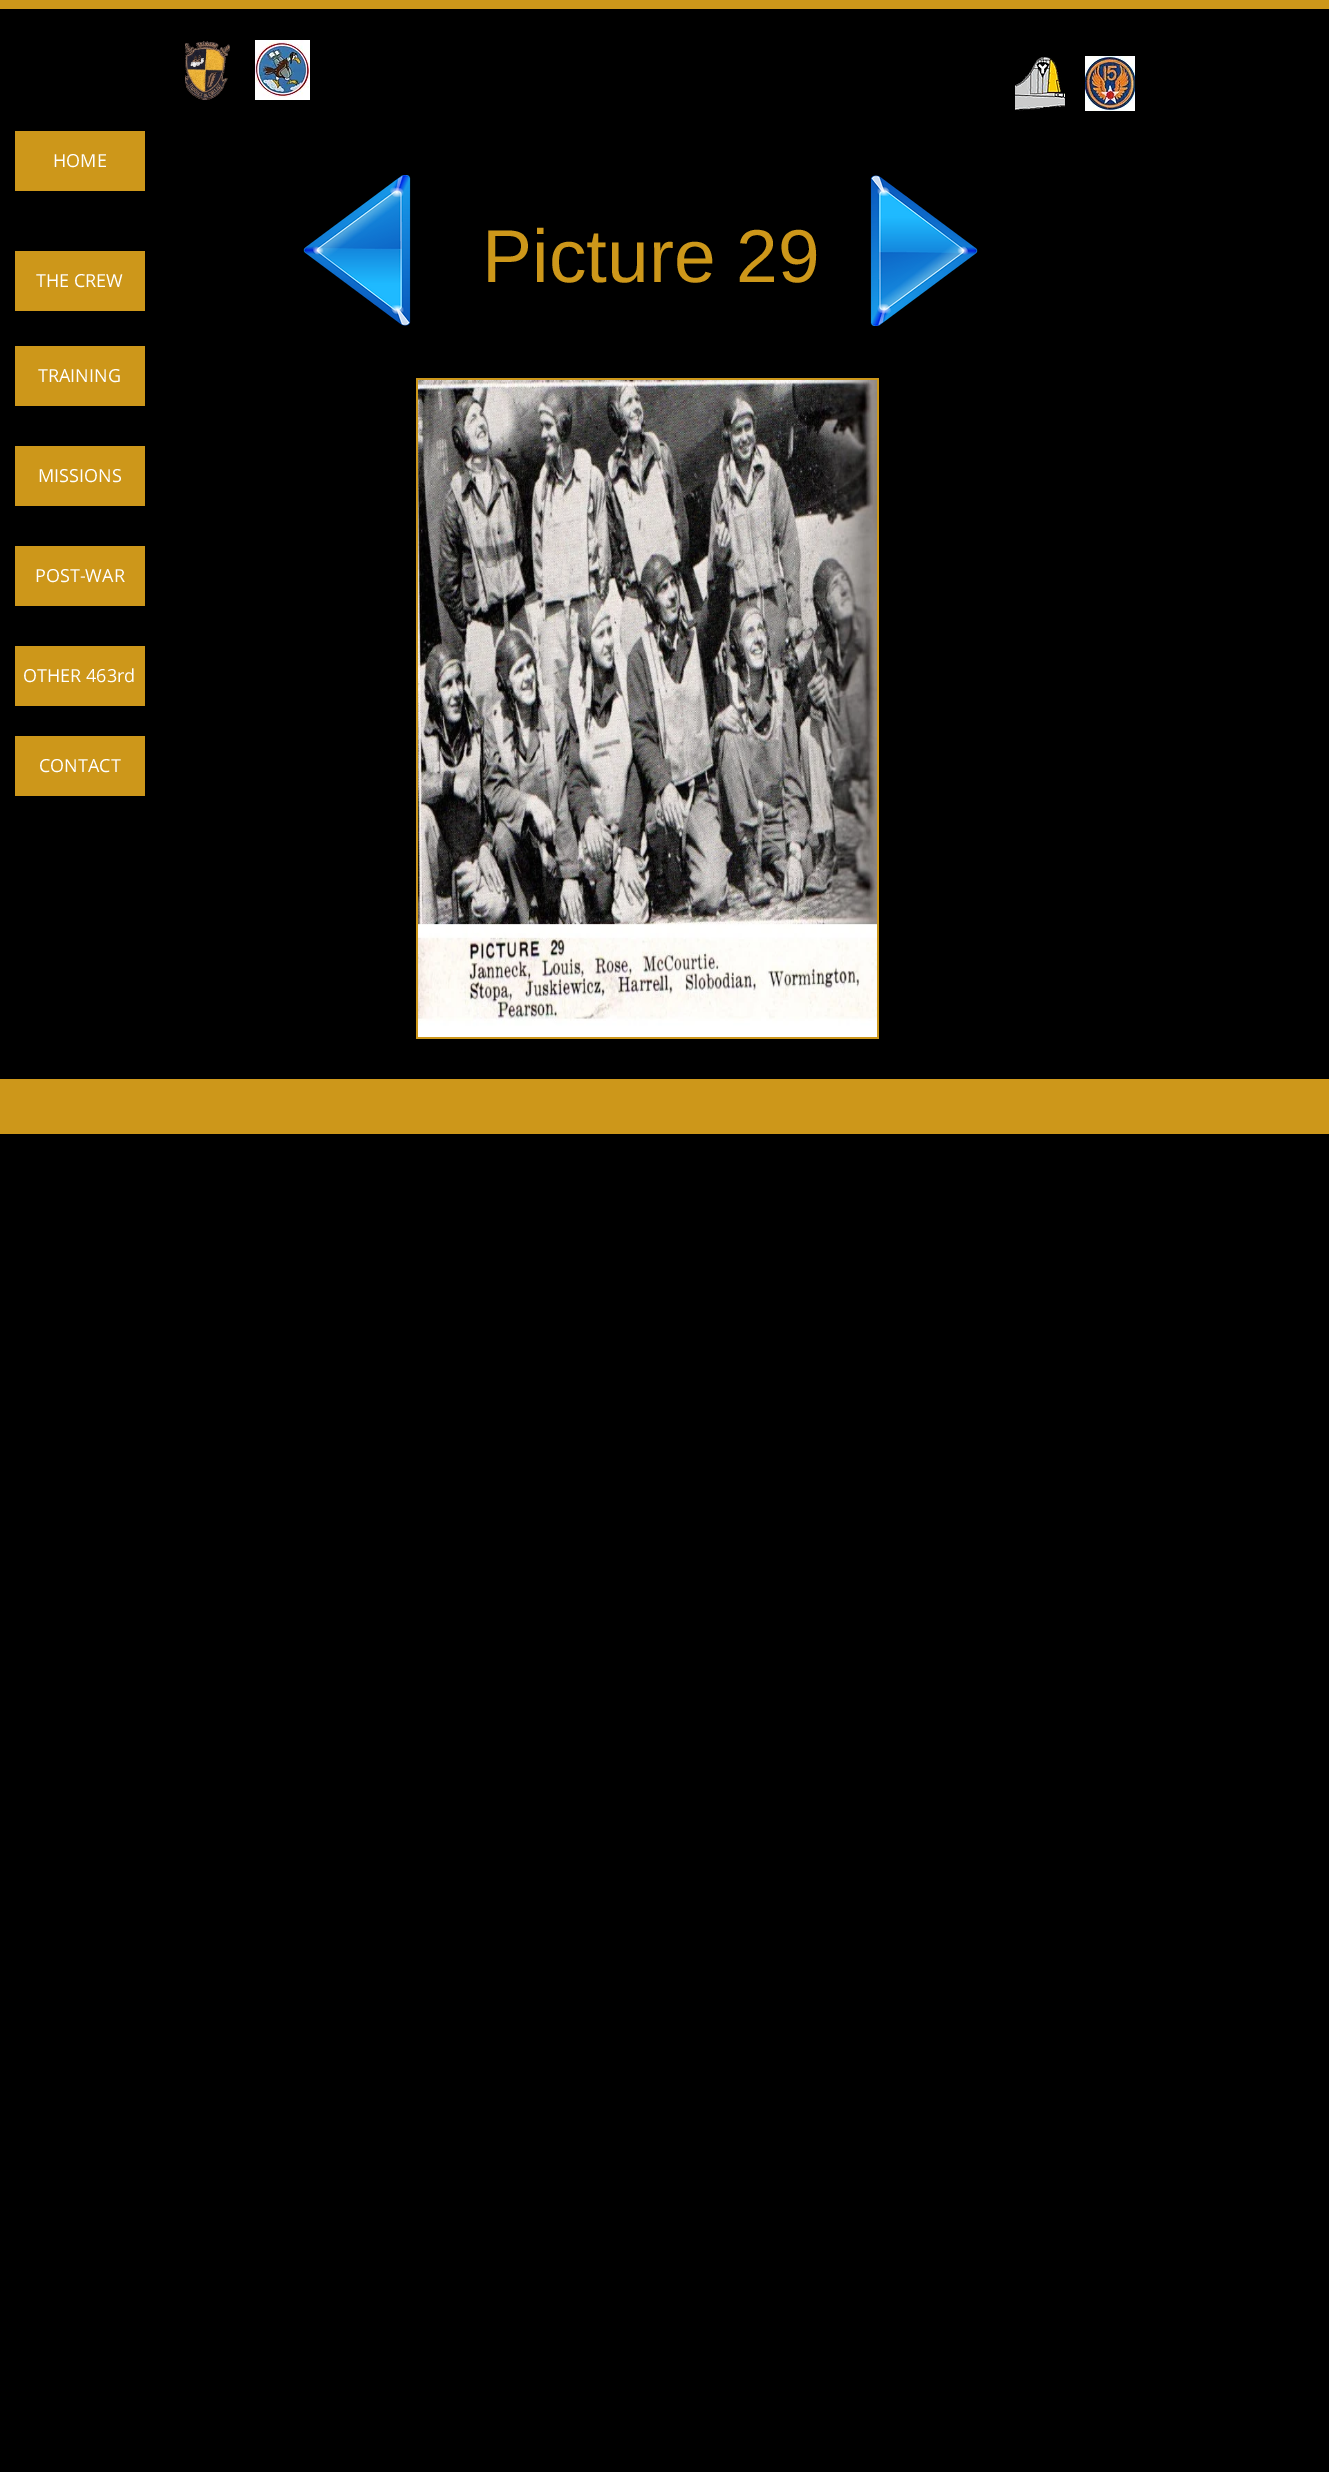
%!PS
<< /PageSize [1329 2472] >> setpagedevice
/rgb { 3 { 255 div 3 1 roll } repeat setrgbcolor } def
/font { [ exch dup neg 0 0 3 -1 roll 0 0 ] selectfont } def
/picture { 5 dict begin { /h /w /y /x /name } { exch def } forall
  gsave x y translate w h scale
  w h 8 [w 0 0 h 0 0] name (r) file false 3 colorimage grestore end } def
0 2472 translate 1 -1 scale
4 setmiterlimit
0 0 0 rgb
0 0 1329 2472 rectfill
205 151 26 rgb
0 0 1329 9 rectfill
(img/1.rgb) 185 41 45 59 picture
(img/2.rgb) 255 40 55 60 picture
(img/3.rgb) 1015 56 50 55 picture
(img/4.rgb) 1085 56 50 55 picture
15 131 130 60 rectfill
(img/5.rgb) 303 175 108 151 picture
(img/6.rgb) 870 175 108 151 picture
416 378 463 661 rectfill
(img/7.rgb) 418 380 459 657 picture
[
  [15 251 130 60 205 151 26]
  [15 346 130 60 205 151 26]
  [15 446 130 60 205 151 26]
  [15 546 130 60 205 151 26]
  [15 646 130 60 205 151 26]
  [15 736 130 60 205 151 26]
  [0 1079 1329 55 205 151 26]
] { aload pop rgb rectfill } forall
/OpenSans-Regular 18 font
255 255 255 rgb
53 167 moveto (HOME) show
/LiberationSans-Regular 75 font
205 151 26 rgb
482 282 moveto (Picture 29) show
/OpenSans-Regular 18 font
255 255 255 rgb
[
  [(THE CREW) 36 287]
  [(TRAINING) 38 382]
  [(MISSIONS) 38 482]
  [(POST-WAR) 35 582]
  [(OTHER 463rd) 23 682]
  [(CONTACT) 39 772]
] { aload pop moveto show } forall
showpage
